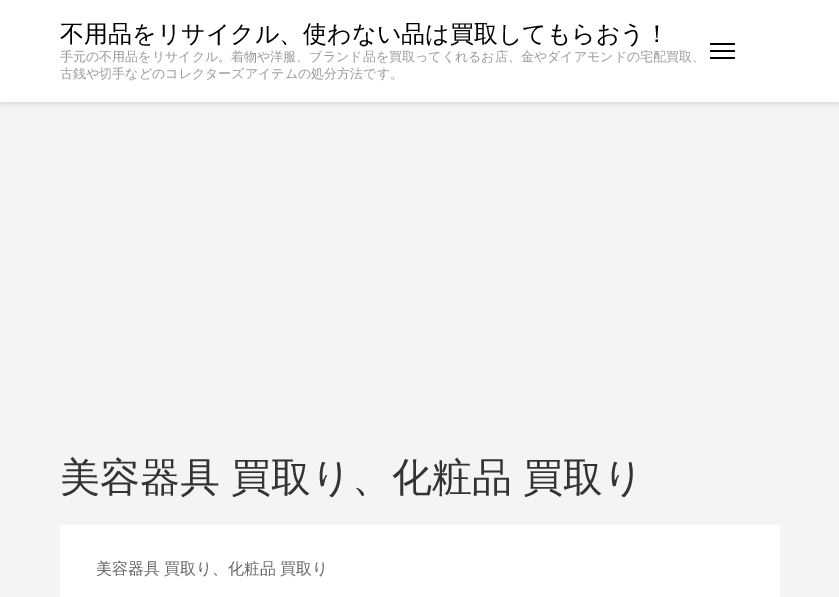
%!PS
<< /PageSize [839 597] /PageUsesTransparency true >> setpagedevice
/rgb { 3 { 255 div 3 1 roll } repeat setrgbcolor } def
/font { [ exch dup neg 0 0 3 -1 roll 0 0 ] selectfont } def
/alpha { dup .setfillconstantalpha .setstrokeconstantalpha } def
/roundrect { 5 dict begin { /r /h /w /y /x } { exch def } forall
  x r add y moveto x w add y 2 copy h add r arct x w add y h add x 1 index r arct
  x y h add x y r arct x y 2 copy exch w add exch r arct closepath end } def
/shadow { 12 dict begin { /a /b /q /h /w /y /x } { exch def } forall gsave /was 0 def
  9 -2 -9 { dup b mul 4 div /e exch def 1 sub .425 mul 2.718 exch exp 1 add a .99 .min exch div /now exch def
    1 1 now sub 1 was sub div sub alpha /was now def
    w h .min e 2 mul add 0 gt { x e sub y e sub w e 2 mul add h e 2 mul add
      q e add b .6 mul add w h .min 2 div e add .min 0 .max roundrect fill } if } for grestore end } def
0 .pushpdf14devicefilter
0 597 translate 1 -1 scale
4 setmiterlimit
244 244 244 rgb
0 0 839 597 rectfill
0 0 0 rgb
0 2 839 102 0 2.5 0.1 shadow
255 255 255 rgb
0 0 839 102 rectfill
0 0 0 rgb
710 43 25 2 1 roundrect fill
710 50 25 2 1 roundrect fill
710 57 25 2 1 roundrect fill
255 255 255 rgb
60 525 720 72 rectfill
/WenQuanYiZenHei-Medium 24 font
0 0 0 rgb
60 42 moveto (不用品をリサイクル、使わない品は買取してもらおう！) show
/WenQuanYiZenHei-Medium 13 font
153 153 153 rgb
60 61 moveto (手元の不用品をリサイクル。着物や洋服、ブランド品を買取ってくれるお店、金やダイアモンドの宅配買取、) show
60 78 moveto (古銭や切手などのコレクターズアイテムの処分方法です。) show
/WenQuanYiZenHei-Medium 40 font
51 51 51 rgb
60 491 moveto -1 0 32 (美容器具 買取り、化粧品 買取り) widthshow
/WenQuanYiZenHei-Medium 16 font
102 102 102 rgb
96 574 moveto -1 0 32 (美容器具 買取り、化粧品 買取り) widthshow
.poppdf14devicefilter showpage
